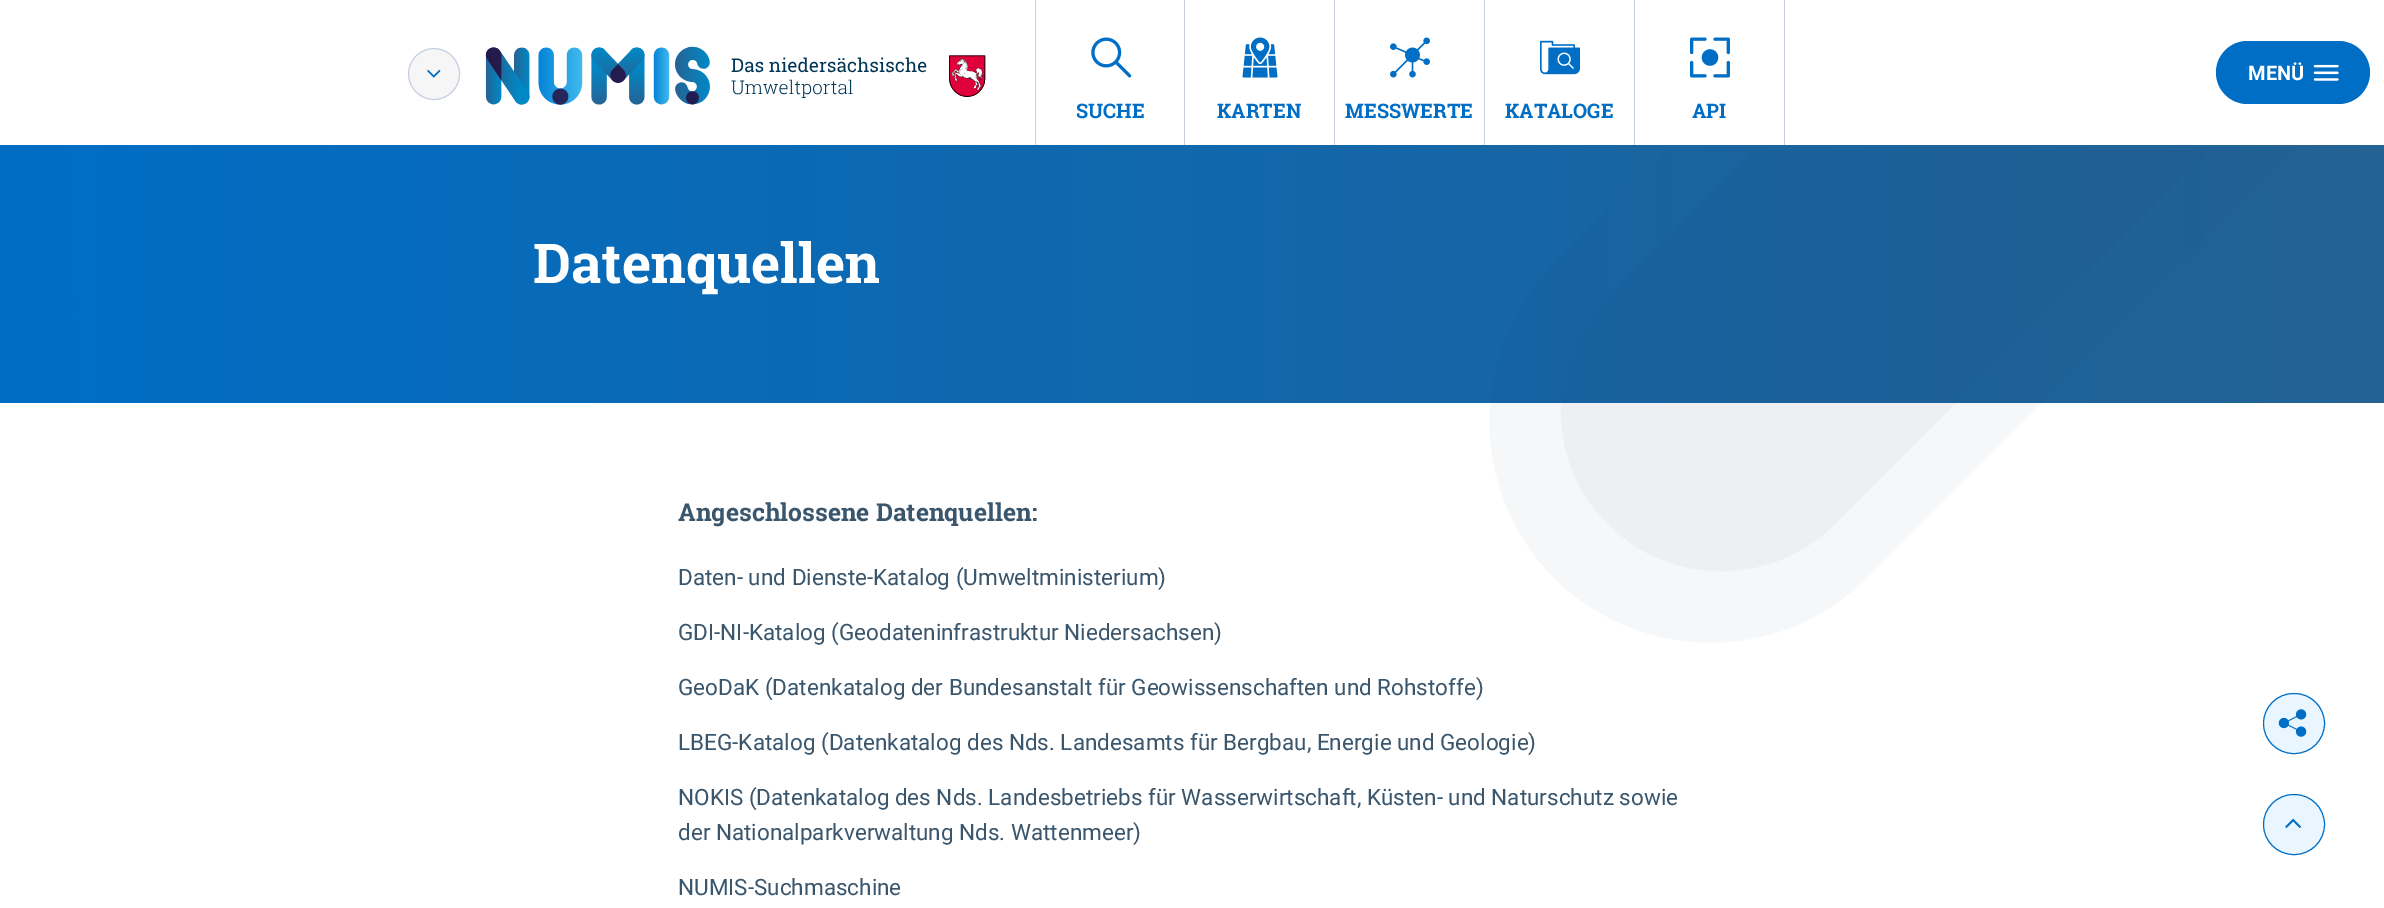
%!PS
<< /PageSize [2384 908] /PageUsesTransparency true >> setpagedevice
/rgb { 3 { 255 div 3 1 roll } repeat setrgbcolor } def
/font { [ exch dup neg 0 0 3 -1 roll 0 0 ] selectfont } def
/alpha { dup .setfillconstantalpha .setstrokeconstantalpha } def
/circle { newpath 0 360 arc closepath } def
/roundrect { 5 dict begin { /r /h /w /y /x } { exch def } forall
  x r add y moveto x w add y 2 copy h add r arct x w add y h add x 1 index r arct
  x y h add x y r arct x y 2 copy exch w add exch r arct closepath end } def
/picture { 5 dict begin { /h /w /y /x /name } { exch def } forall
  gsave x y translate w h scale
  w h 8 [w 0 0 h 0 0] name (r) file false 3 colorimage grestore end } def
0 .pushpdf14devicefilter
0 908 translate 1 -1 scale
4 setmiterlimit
255 255 255 rgb
0 0 2384 908 rectfill
(img/1.rgb) 0 145 2384 5 picture
246 246 246 rgb
434 74 25.5 circle gsave fill grestore
198 207 226 rgb
stroke
(img/2.rgb) 427 69 14 9 picture
(img/3.rgb) 485 46 501 59 picture
0 110 197 rgb
2216 41 154 63 31.5 roundrect fill
(img/4.rgb) 2313 64 26 17 picture
198 207 226 rgb
1184 0 1 145 rectfill
1035 0 1 145 rectfill
(img/5.rgb) 1091 37 41 41 picture
1334 0 1 145 rectfill
(img/6.rgb) 1242 37 36 41 picture
1484 0 1 145 rectfill
(img/7.rgb) 1390 37 40 41 picture
1634 0 1 145 rectfill
(img/8.rgb) 1540 40 40 35 picture
1784 0 1 145 rectfill
(img/9.rgb) 1690 37 40 41 picture
gsave 0 150 moveto 2384 150 lineto 2384 403 lineto 0 403 lineto closepath clip newpath
<< /ShadingType 2 /ColorSpace /DeviceRGB /Coords [0 276 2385 276] /Extend [true true] /Function << /FunctionType 2 /Domain [0 1] /C0 [0 0.431 0.773] /C1 [0.141 0.384 0.576] /N 1 >> >> shfill grestore
0.04 alpha
19 50 104 rgb
1755 150 moveto 1608 297 lineto 1545 360 1545 462 1608 524 curveto 1670 587 1772 587 1835 524 curveto 2209 150 lineto closepath eofill
2295 150 moveto 1668 150 lineto 1554 264 lineto 1468 351 1468 491 1554 578 curveto 1641 664 1781 664 1867 578 curveto closepath eofill
1 alpha
234 246 255 rgb
2263.5 693.5 61 60 30 roundrect gsave fill grestore
0 110 197 rgb
stroke
(img/10.rgb) 2278 709 29 28 picture
234 246 255 rgb
2263.5 794.5 61 60 30 roundrect gsave fill grestore
0 110 197 rgb
stroke
(img/11.rgb) 2285 818 16 10 picture
/Roboto-Bold 20 font
255 255 255 rgb
2248 80 moveto (MENÜ) show
/RobotoSlab-Bold 20 font
0 110 197 rgb
[
  [(SUCHE) 1076 118]
  [(KARTEN) 1217 118]
  [(MESSWERTE) 1345 118]
  [(KATALOGE) 1505 118]
  [(API) 1692 118]
] { aload pop moveto show } forall
/RobotoSlab-Bold 55 font
255 255 255 rgb
533 283 moveto (Datenquellen) show
/RobotoSlab-Bold 24.75 font
58 86 109 rgb
678 521 moveto (Angeschlossene Datenquellen:) show
/Roboto-Regular 22.5 font
[
  [(Daten- und Dienste-Katalog \(Umweltministerium\)) 678 585]
  [(GDI-NI-Katalog \(Geodateninfrastruktur Niedersachsen\)) 678 640]
  [(GeoDaK \(Datenkatalog der Bundesanstalt für Geowissenschaften und Rohstoffe\)) 678 695]
  [(LBEG-Katalog \(Datenkatalog des Nds. Landesamts für Bergbau, Energie und Geologie\)) 678 750]
  [(NOKIS \(Datenkatalog des Nds. Landesbetriebs für Wasserwirtschaft, Küsten- und Naturschutz sowie) 678 805]
  [(der Nationalparkverwaltung Nds. Wattenmeer\)) 678 840]
  [(NUMIS-Suchmaschine) 678 895]
] { aload pop moveto show } forall
.poppdf14devicefilter showpage
